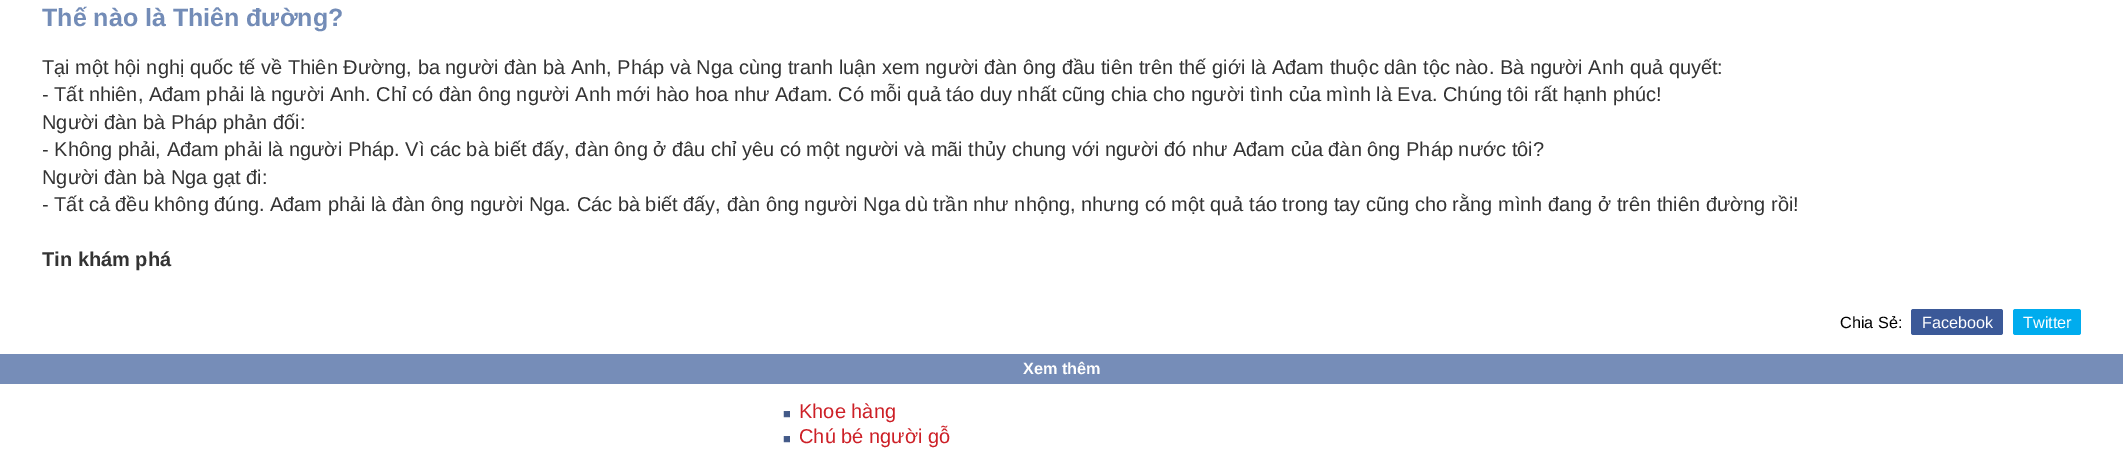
%!PS
<< /PageSize [2123 450] >> setpagedevice
/rgb { 3 { 255 div 3 1 roll } repeat setrgbcolor } def
/font { [ exch dup neg 0 0 3 -1 roll 0 0 ] selectfont } def
/roundrect { 5 dict begin { /r /h /w /y /x } { exch def } forall
  x r add y moveto x w add y 2 copy h add r arct x w add y h add x 1 index r arct
  x y h add x y r arct x y 2 copy exch w add exch r arct closepath end } def
/picture { 5 dict begin { /h /w /y /x /name } { exch def } forall
  gsave x y translate w h scale
  w h 8 [w 0 0 h 0 0] name (r) file false 3 colorimage grestore end } def
0 450 translate 1 -1 scale
4 setmiterlimit
255 255 255 rgb
0 0 2123 450 rectfill
59 89 152 rgb
1911 309 92 26 2.5 roundrect fill
0 172 238 rgb
2013 309 68 26 2.5 roundrect fill
118 141 184 rgb
0 354 2123 30 rectfill
(img/1.rgb) 783 411 7 7 picture
(img/1.rgb) 783 436 7 7 picture
/LiberationSans-Bold 25 font
115 140 183 rgb
42 26 moveto (Thế nào là Thiên đường?) show
/LiberationSans-Regular 20 font
51 51 51 rgb
[
  [(Tại một hội nghị quốc tế về Thiên Đường, ba người đàn bà Anh, Pháp và Nga cùng tranh luận xem người đàn ông đầu tiên trên thế giới là Ađam thuộc dân tộc nào. Bà người Anh quả quyết:) 42 74]
  [(- Tất nhiên, Ađam phải là người Anh. Chỉ có đàn ông người Anh mới hào hoa như Ađam. Có mỗi quả táo duy nhất cũng chia cho người tình của mình là Eva. Chúng tôi rất hạnh phúc!) 42 101]
  [(Người đàn bà Pháp phản đối:) 42 129]
  [(- Không phải, Ađam phải là người Pháp. Vì các bà biết đấy, đàn ông ở đâu chỉ yêu có một người và mãi thủy chung với người đó như Ađam của đàn ông Pháp nước tôi?) 42 156]
  [(Người đàn bà Nga gạt đi:) 42 184]
  [(- Tất cả đều không đúng. Ađam phải là đàn ông người Nga. Các bà biết đấy, đàn ông người Nga dù trần như nhộng, nhưng có một quả táo trong tay cũng cho rằng mình đang ở trên thiên đường rồi!) 42 211]
] { aload pop moveto show } forall
/LiberationSans-Bold 20 font
42 266 moveto (Tin khám phá) show
/LiberationSans-Regular 16.25 font
0 0 0 rgb
1840 328 moveto (Chia Sẻ:) show
255 255 255 rgb
1922 328 moveto (Facebook) show
2023 328 moveto (Twitter) show
/LiberationSans-Bold 16.25 font
1023 374 moveto (Xem thêm) show
/LiberationSans-Regular 20 font
205 32 39 rgb
799 418 moveto (Khoe hàng) show
799 443 moveto (Chú bé người gỗ) show
showpage
